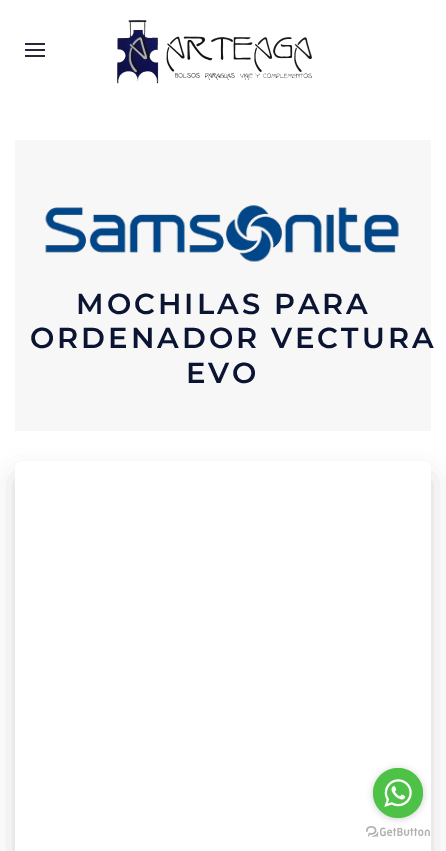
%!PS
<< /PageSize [446 851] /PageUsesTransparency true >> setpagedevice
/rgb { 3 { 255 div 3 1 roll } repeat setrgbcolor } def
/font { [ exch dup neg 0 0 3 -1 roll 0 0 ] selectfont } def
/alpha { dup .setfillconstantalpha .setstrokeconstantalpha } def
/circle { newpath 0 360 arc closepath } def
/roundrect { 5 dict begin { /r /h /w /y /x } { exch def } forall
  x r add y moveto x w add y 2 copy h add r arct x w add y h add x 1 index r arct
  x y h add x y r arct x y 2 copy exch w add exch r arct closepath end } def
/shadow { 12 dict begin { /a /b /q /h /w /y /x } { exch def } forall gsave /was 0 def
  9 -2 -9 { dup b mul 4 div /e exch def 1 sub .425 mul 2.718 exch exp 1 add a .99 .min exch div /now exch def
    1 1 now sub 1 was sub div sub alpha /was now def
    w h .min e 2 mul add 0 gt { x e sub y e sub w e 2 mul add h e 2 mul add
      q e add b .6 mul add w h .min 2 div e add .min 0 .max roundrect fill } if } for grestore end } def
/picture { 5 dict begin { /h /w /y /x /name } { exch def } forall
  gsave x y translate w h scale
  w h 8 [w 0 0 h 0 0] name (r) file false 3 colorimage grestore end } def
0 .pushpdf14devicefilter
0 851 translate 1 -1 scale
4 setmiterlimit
255 255 255 rgb
0 0 446 851 rectfill
[
  [25 43 20 2 39 40 61]
  [25 49 20 2 39 40 61]
  [25 55 20 2 39 40 61]
] { aload pop rgb rectfill } forall
(img/1.rgb) 116 20 197 64 picture
247 247 247 rgb
15 140 416 291 rectfill
(img/2.rgb) 45 205 354 57 picture
gsave
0 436 moveto 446 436 lineto 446 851 lineto 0 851 lineto closepath 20 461 moveto 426 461 lineto 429 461 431 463 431 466 curveto 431 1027 lineto 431 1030 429 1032 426 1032 curveto 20 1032 lineto 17 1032 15 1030 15 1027 curveto 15 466 lineto 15 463 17 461 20 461 curveto closepath eoclip newpath
0 0 0 rgb
15 475 416 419 5 12.5 0.16 shadow
grestore
(img/4.rgb) 366 826 64 11 picture
136 136 136 rgb
373 769 50 50 25 3.5 0.4 shadow
77 194 71 rgb
398 793 25 circle fill
(img/3.rgb) 384 779 28 28 picture
/Montserrat-SemiBold 28.9 font
11 20 50 rgb
76 314 moveto 3 0 (MOCHILAS PARA) ashow
30 348 moveto 3 0 (ORDENADOR VECTURA) ashow
186 383 moveto 3 0 (EVO) ashow
.poppdf14devicefilter showpage
